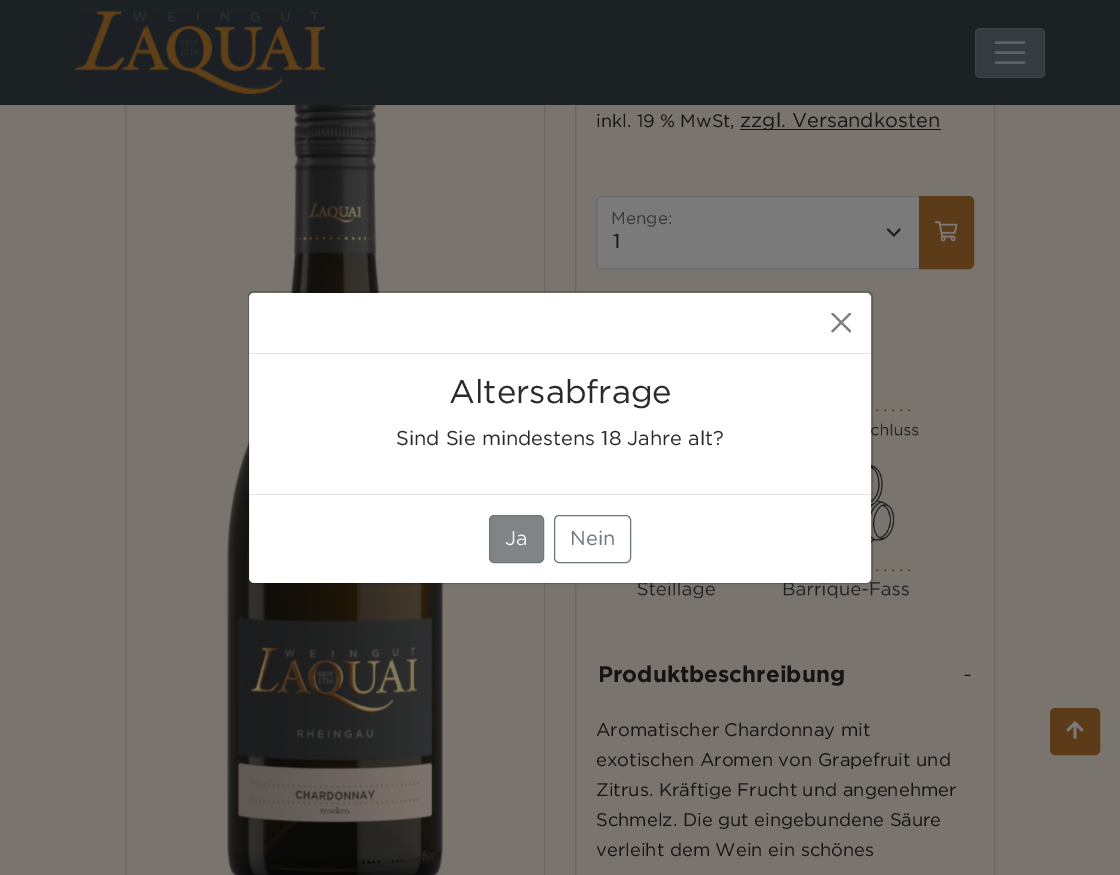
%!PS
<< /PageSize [1120 875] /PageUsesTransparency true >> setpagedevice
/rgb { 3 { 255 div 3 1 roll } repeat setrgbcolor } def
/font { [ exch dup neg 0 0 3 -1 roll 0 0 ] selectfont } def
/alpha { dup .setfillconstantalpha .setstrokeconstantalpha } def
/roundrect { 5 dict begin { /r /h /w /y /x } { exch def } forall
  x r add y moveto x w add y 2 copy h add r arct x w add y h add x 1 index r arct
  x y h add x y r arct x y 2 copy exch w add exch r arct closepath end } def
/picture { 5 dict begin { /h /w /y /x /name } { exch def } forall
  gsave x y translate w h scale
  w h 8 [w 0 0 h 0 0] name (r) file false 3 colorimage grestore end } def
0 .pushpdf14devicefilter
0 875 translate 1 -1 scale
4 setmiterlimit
121 116 110 rgb
0 0 1120 875 rectfill
106 102 96 rgb
125.5 -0.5 419 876 rectstroke
575.5 -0.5 419 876 rectstroke
28 33 36 rgb
0 0 1120 105 rectfill
(img/1.rgb) 75 11 250 83 picture
54 59 63 rgb
975 28 70 50 5 roundrect fill
0.1 alpha
128 128 128 rgb
975.5 28.5 69 49 4.5 roundrect stroke
1 alpha
95 97 99 rgb
2.5 setlinewidth
1 setlinecap
996 42.5 moveto 1024 42.5 lineto 996 52.5 moveto 1024 52.5 lineto 996 62.5 moveto 1024 62.5 lineto stroke
(img/3.rgb) 226 105 218 770 picture
(img/7.rgb) 781 460 130 139 picture
255 255 255 rgb
249 293 622 290 5 roundrect fill
(img/5.rgb) 871 301 48 135 picture
(img/6.rgb) 611 583 130 16 picture
0.2 alpha
0 0 0 rgb
1 setlinewidth
0 setlinecap
248.5 291.5 624 292 5.5 roundrect stroke
1 alpha
222 226 230 rgb
249 353 622 1 rectfill
(img/2.rgb) 831 313 20 20 picture
249 494 622 1 rectfill
129 132 132 rgb
489.5 515.5 54 47 4.5 roundrect gsave fill grestore
108 117 125 rgb
stroke
554.5 515.5 76 47 4.5 roundrect stroke
21 21 21 rgb
740 129 201 1 rectfill
122 122 122 rgb
601 196 moveto 920 196 lineto 920 269 lineto 601 269 lineto 598 269 596 267 596 264 curveto 596 201 lineto 596 198 598 196 601 196 curveto closepath fill
26 29 32 rgb
1.9 setlinewidth
1 setlinecap
1 setlinejoin
888 229.5 moveto 894 235.5 lineto 899.5 229.5 lineto stroke
103 106 109 rgb
1 setlinewidth
0 setlinecap
0 setlinejoin
601 196.5 moveto 919.5 196.5 lineto 919.5 268.5 lineto 601 268.5 lineto 598.5 268.5 596.5 266.5 596.5 264 curveto 596.5 201 lineto 596.5 198.5 598.5 196.5 601 196.5 curveto closepath stroke
92 60 24 rgb
919.5 196.5 moveto 969 196.5 lineto 971.5 196.5 973.5 198.5 973.5 201 curveto 973.5 264 lineto 973.5 266.5 971.5 268.5 969 268.5 curveto 919.5 268.5 lineto closepath gsave fill grestore
stroke
(img/4.rgb) 935 221 23 21 picture
1050.5 708.5 49 46 4.5 roundrect gsave fill grestore
stroke
(img/8.rgb) 1066 721 18 18 picture
/Gotham-Regular 32.75 font
42 42 42 rgb
449 403 moveto (Altersabfrage) show
/Gotham-Regular 20 font
396 445 moveto (Sind Sie mindestens 18 Jahre alt?) show
243 243 243 rgb
505 545 moveto (Ja) show
108 117 125 rgb
570 545 moveto (Nein) show
/Gotham-Regular 18 font
21 21 21 rgb
596 127 moveto (inkl. 19 % MwSt,) show
/Gotham-Regular 20 font
740 127 moveto (zzgl. Versandkosten) show
/Gotham-Regular 17 font
56 56 56 rgb
611 224 moveto (Menge:) show
/Gotham-Regular 20 font
21 21 21 rgb
613 248 moveto (1) show
/Gotham-Bold 22.5 font
598 682 moveto (Produktbeschreibung) show
/Gotham-Light 22.5 font
963 682 moveto (-) show
/Gotham-Regular 18.3 font
[
  [(Aromatischer Chardonnay mit) 596 736]
  [(exotischen Aromen von Grapefruit und) 596 766]
  [(Zitrus. Kräftige Frucht und angenehmer) 596 796]
  [(Schmelz. Die gut eingebundene Säure) 596 826]
  [(verleiht dem Wein ein schönes) 596 856]
] { aload pop moveto show } forall
.poppdf14devicefilter showpage
